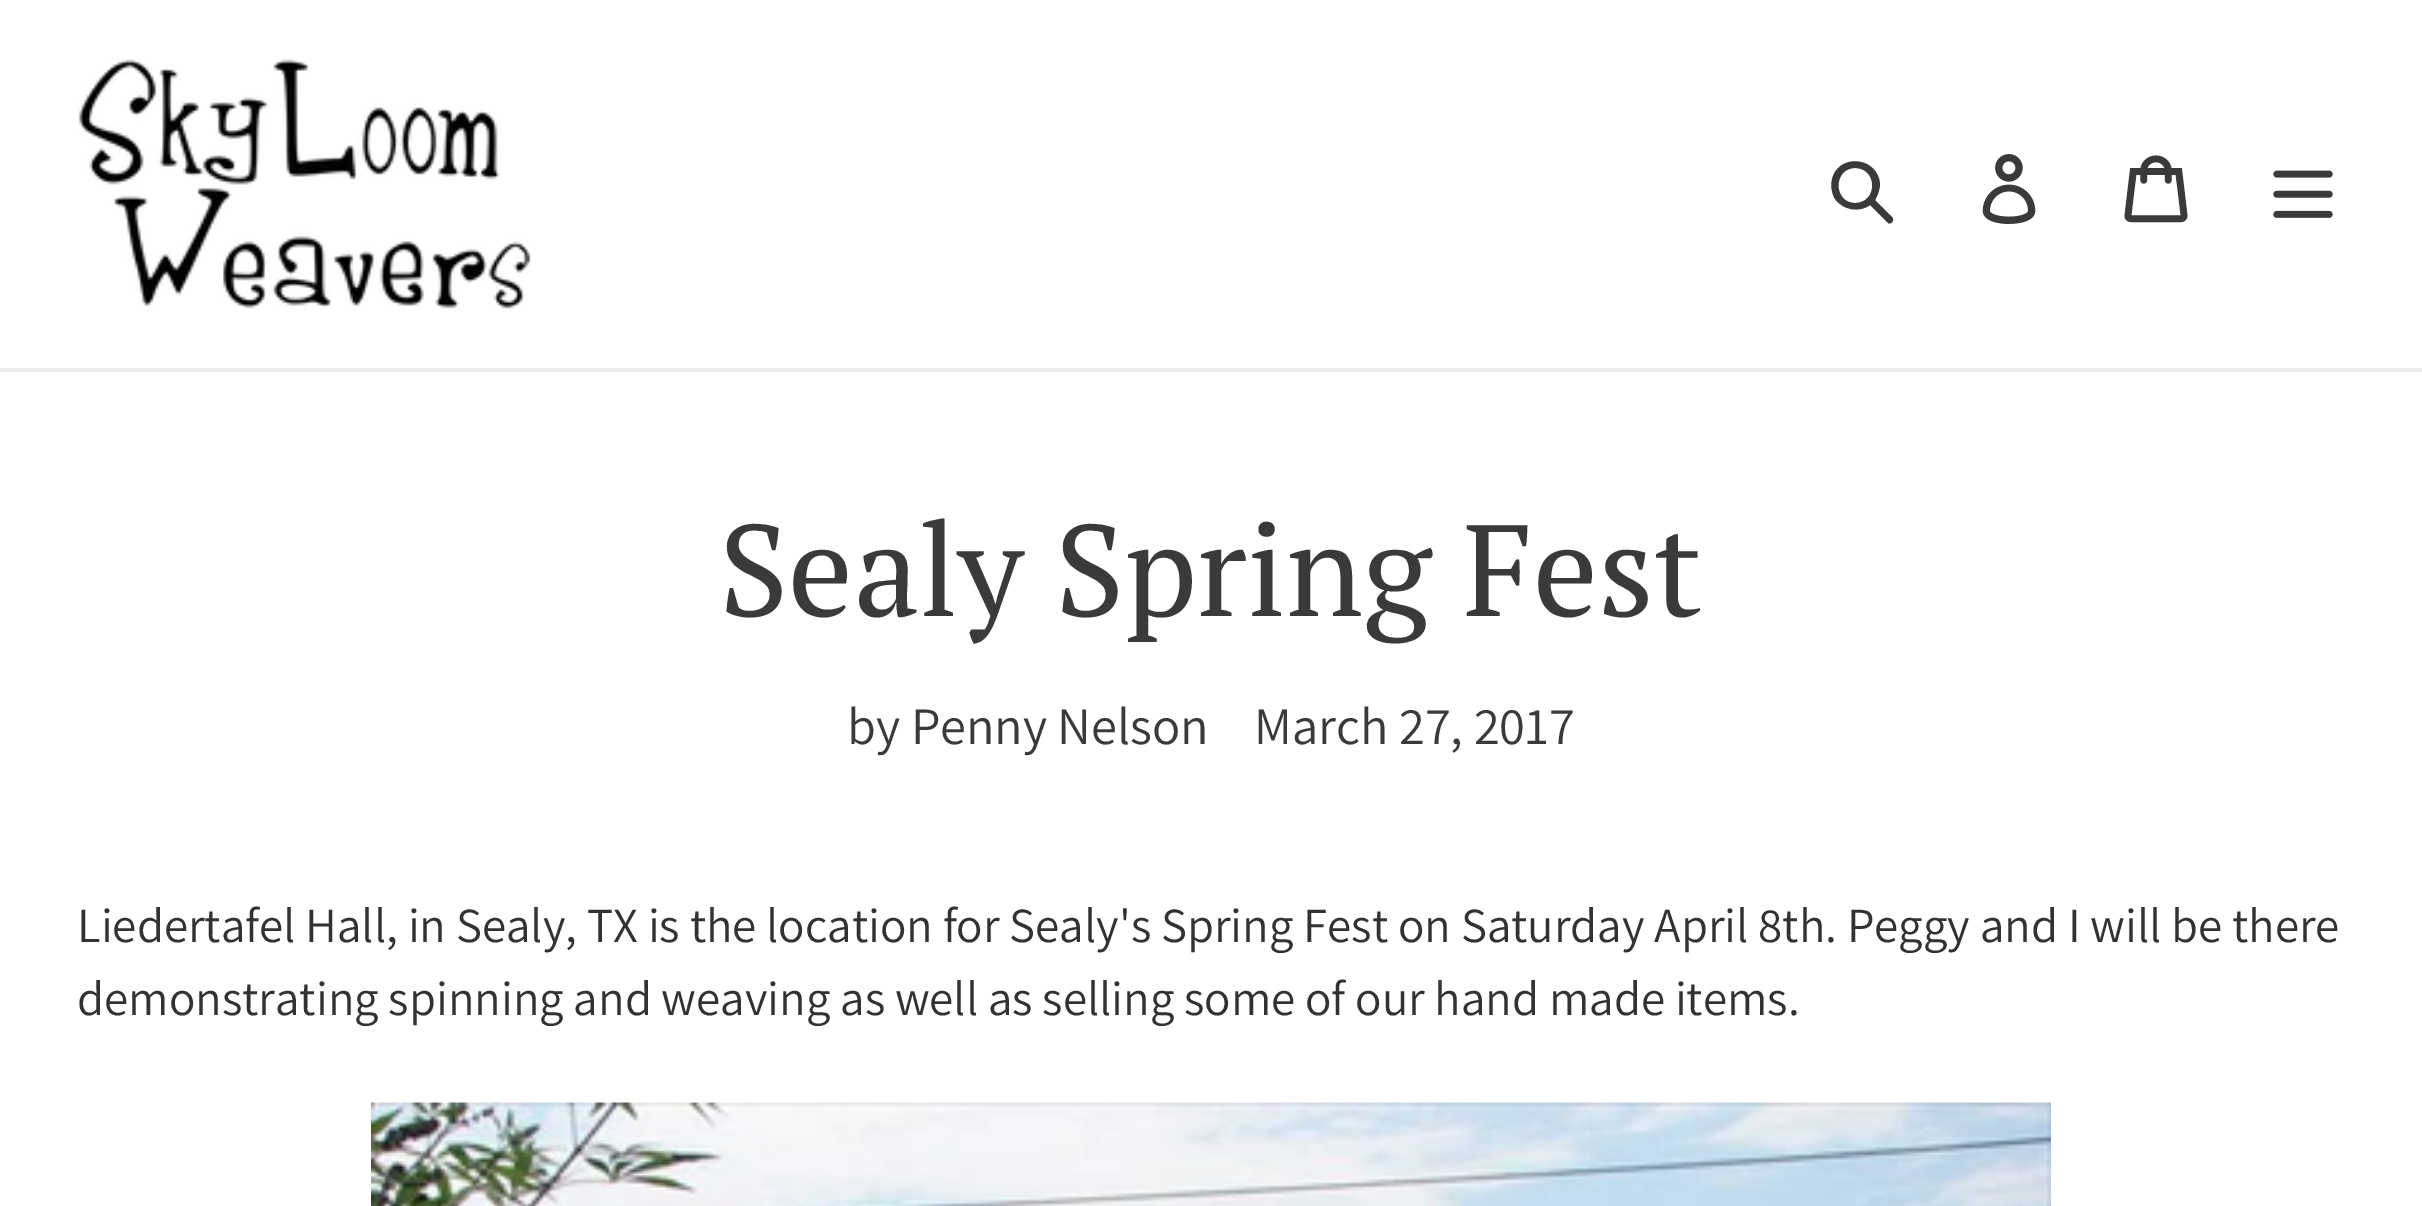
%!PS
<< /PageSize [2422 1206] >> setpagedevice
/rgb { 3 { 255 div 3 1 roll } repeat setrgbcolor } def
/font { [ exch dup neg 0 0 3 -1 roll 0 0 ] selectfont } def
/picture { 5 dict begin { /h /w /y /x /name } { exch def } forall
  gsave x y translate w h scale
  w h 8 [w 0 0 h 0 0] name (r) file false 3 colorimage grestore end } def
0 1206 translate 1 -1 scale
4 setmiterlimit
255 255 255 rgb
0 0 2422 1206 rectfill
235 235 235 rgb
0 368 2422 4 rectfill
(img/1.rgb) 78 59 453 250 picture
58 58 58 rgb
1892 217 moveto 1875 200 lineto 1878 195 1880 189 1880 184 curveto 1878 158 1842 153 1833 176 curveto 1830 184 1831 192 1835 199 curveto 1843 210 1859 213 1870 205 curveto 1888 223 lineto 1891 225 1895 220 1892 217 curveto closepath 1855 203 moveto 1833 203 1833 168 1855 168 curveto 1878 168 1878 203 1855 203 curveto closepath fill
(img/2.rgb) 1982 154 54 70 picture
(img/3.rgb) 2124 155 64 68 picture
(img/4.rgb) 2273 170 60 48 picture
(img/5.rgb) 371 1102 1680 104 picture
/PTSerif-Regular 129.5 font
719 616 moveto (Sealy Spring Fest) show
/Assistant-Regular 52.5 font
847 744 moveto (by Penny Nelson) show
1254 744 moveto (March 27, 2017) show
/Assistant-Regular 49 font
51 50 50 rgb
77 942 moveto (Liedertafel Hall, in Sealy, TX is the location for Sealy's Spring Fest on Saturday April 8th. Peggy and I will be there) show
77 1015 moveto -0.1 0 32 (demonstrating spinning and weaving as well as selling some of our hand made items.) widthshow
showpage
